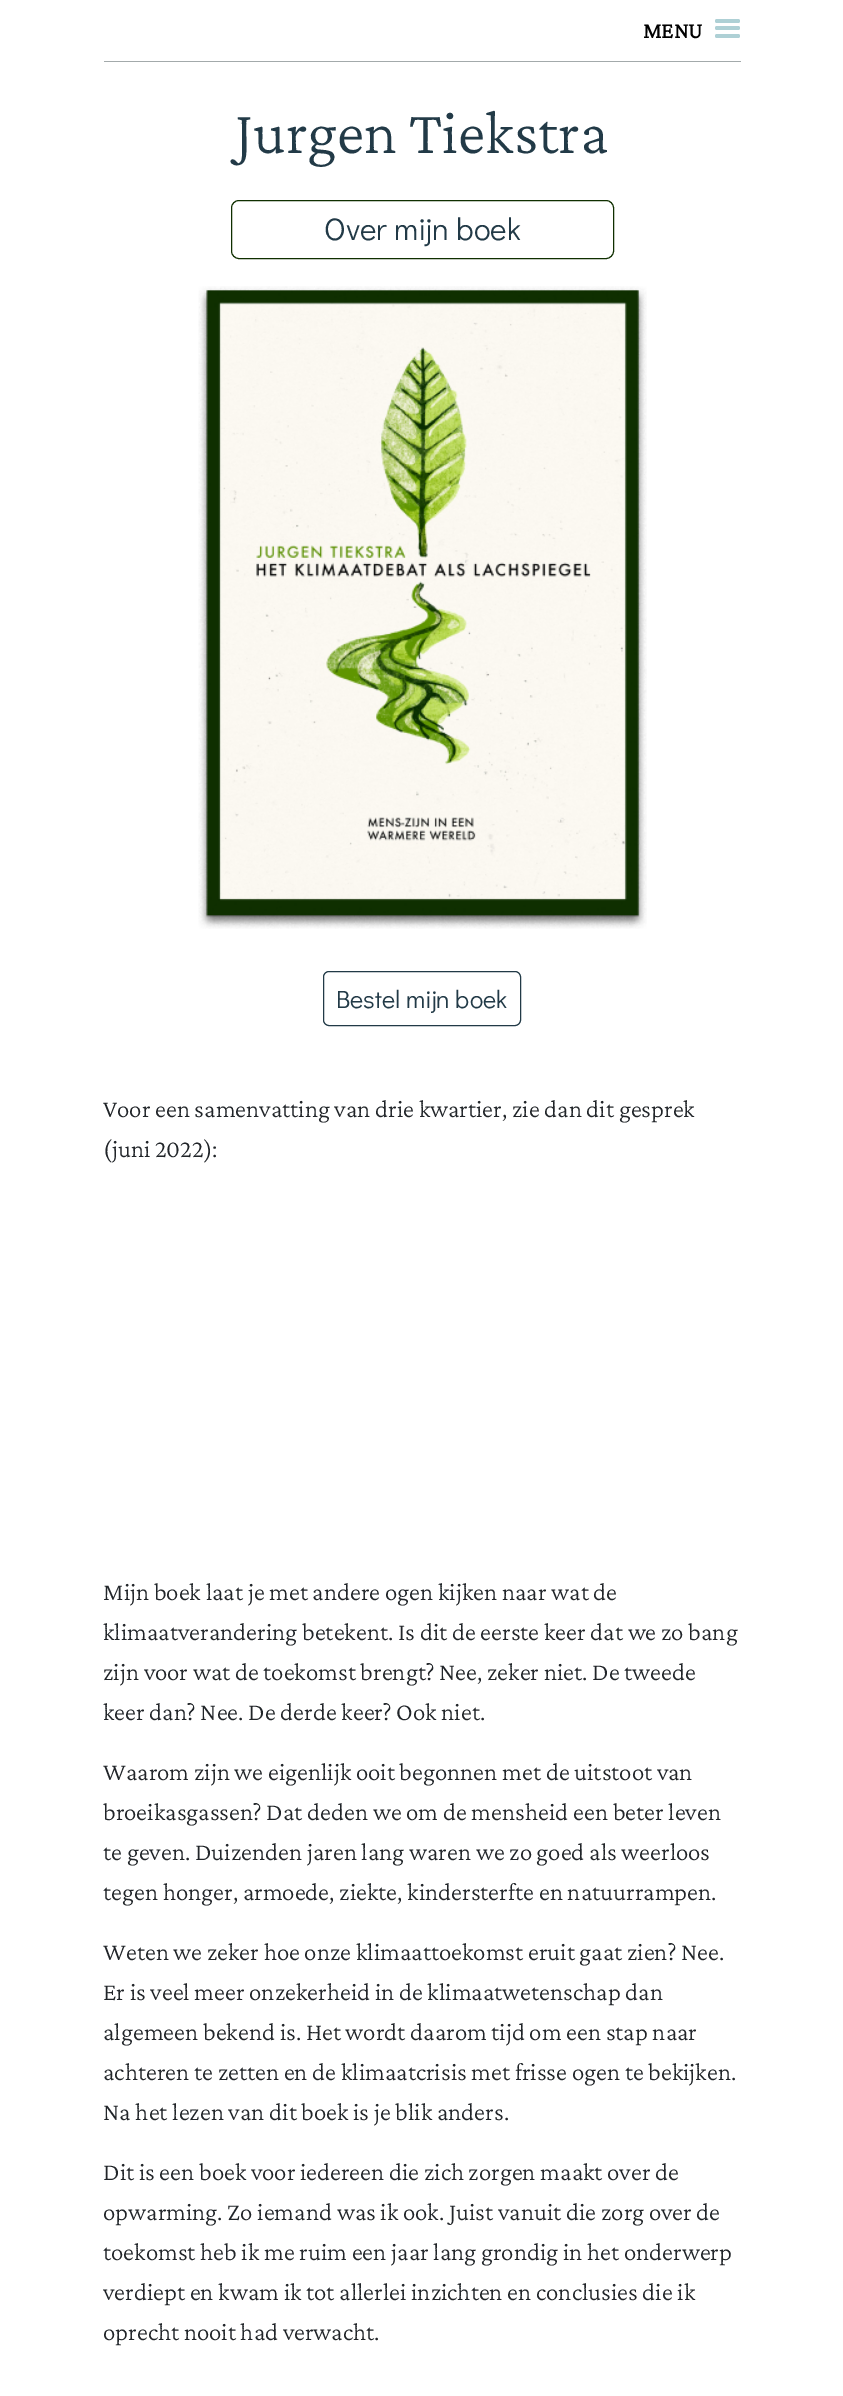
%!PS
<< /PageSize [843 2396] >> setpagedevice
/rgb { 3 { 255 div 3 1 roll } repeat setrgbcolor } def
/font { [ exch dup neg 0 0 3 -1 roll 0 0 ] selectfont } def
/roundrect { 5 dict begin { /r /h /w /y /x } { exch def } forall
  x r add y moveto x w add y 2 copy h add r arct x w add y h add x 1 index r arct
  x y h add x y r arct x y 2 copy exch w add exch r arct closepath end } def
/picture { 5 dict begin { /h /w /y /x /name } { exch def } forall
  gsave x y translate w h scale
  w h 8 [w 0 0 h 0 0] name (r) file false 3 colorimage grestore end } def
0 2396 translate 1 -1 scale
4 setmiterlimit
255 255 255 rgb
0 0 843 2396 rectfill
174 208 213 rgb
715 19 25 4 2 roundrect fill
715 26 25 4 2 roundrect fill
715 34 25 4 2 roundrect fill
163 170 171 rgb
104 61 637 1 rectfill
15 47 0 rgb
231.5 200.5 382 58 7.5 roundrect stroke
(img/1.rgb) 198 286 449 643 picture
34 58 71 rgb
323.5 971.5 197 54 5.5 roundrect stroke
/CrimsonPro-Bold 22.5 font
0 0 0 rgb
643 38 moveto (MENU) show
/CrimsonPro-Light 62.5 font
34 58 71 rgb
235 153 moveto (Jurgen Tiekstra) show
/DidactGothic-Regular 31.25 font
324 240 moveto (Over mijn boek) show
/DidactGothic-Regular 25 font
336 1008 moveto (Bestel mijn boek) show
/CrimsonPro-Light 25 font
33 37 41 rgb
[
  [(Voor een samenvatting van drie kwartier, zie dan dit gesprek) 103 1117]
  [(\(juni 2022\):) 103 1157]
  [(Mijn boek laat je met andere ogen kijken naar wat de) 103 1600]
  [(klimaatverandering betekent. Is dit de eerste keer dat we zo bang) 103 1640]
  [(zijn voor wat de toekomst brengt? Nee, zeker niet. De tweede) 103 1680]
  [(keer dan? Nee. De derde keer? Ook niet.) 103 1720]
  [(Waarom zijn we eigenlijk ooit begonnen met de uitstoot van) 103 1780]
  [(broeikasgassen? Dat deden we om de mensheid een beter leven) 103 1820]
  [(te geven. Duizenden jaren lang waren we zo goed als weerloos) 103 1860]
  [(tegen honger, armoede, ziekte, kindersterfte en natuurrampen.) 103 1900]
  [(Weten we zeker hoe onze klimaattoekomst eruit gaat zien? Nee.) 103 1960]
  [(Er is veel meer onzekerheid in de klimaatwetenschap dan) 103 2000]
  [(algemeen bekend is. Het wordt daarom tijd om een stap naar) 103 2040]
  [(achteren te zetten en de klimaatcrisis met frisse ogen te bekijken.) 103 2080]
  [(Na het lezen van dit boek is je blik anders.) 103 2120]
  [(Dit is een boek voor iedereen die zich zorgen maakt over de) 103 2180]
  [(opwarming. Zo iemand was ik ook. Juist vanuit die zorg over de) 103 2220]
  [(toekomst heb ik me ruim een jaar lang grondig in het onderwerp) 103 2260]
  [(verdiept en kwam ik tot allerlei inzichten en conclusies die ik) 103 2300]
  [(oprecht nooit had verwacht.) 103 2340]
] { aload pop moveto show } forall
showpage
